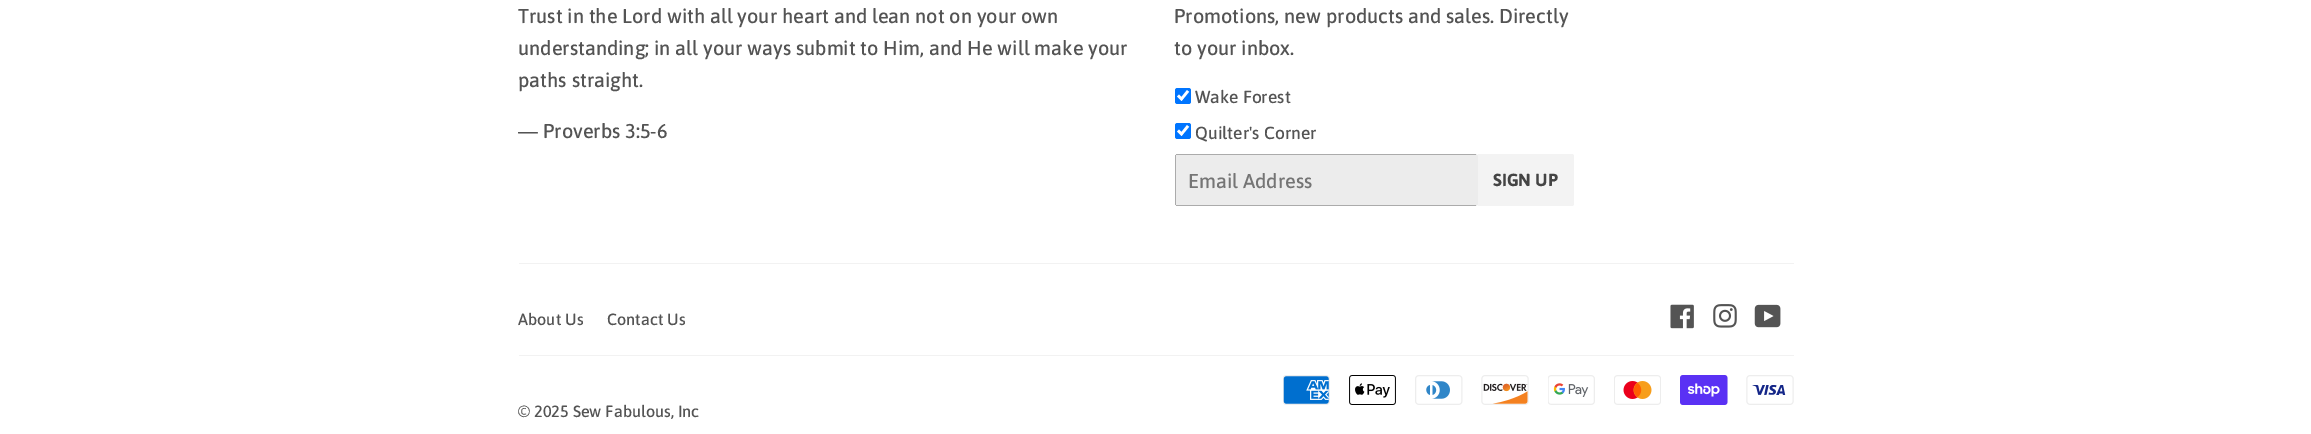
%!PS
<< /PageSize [2311 434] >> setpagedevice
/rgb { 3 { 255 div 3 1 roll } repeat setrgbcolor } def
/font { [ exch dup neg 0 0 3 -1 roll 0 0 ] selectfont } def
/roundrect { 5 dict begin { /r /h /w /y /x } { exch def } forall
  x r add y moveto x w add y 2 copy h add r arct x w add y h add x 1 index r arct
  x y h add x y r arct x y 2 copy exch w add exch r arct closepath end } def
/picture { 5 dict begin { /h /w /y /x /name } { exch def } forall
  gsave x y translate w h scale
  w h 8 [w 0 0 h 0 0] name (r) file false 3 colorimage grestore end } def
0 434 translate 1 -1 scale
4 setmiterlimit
255 255 255 rgb
0 0 2311 434 rectfill
0 117 255 rgb
1175 88 16 16 2.5 roundrect fill
255 255 255 rgb
2.6 setlinewidth
1178 95.5 moveto 1181.5 99 lineto 1188 91 lineto stroke
0 117 255 rgb
1175 123 16 16 2.5 roundrect fill
255 255 255 rgb
1178 130.5 moveto 1181.5 134 lineto 1188 126 lineto stroke
236 236 236 rgb
1175 154 303 52 2.5 roundrect fill
[
  [1176 154 300 1 171 171 171]
  [1176 205 300 1 171 171 171]
  [1175 155 1 50 171 171 171]
] { aload pop rgb rectfill } forall
243 243 243 rgb
1478 154 moveto 1571.5 154 lineto 1573 154 1574 155 1574 156.5 curveto 1574 203.5 lineto 1574 205 1573 206 1571.5 206 curveto 1478 206 lineto closepath fill
242 242 242 rgb
519 263 1275 1 rectfill
(img/1.rgb) 1670 304 24 25 picture
(img/2.rgb) 1713 304 24 24 picture
(img/3.rgb) 1754 304 27 24 picture
519 355 1275 1 rectfill
(img/4.rgb) 1283 375 47 30 picture
(img/5.rgb) 1349 375 47 30 picture
(img/6.rgb) 1415 375 48 30 picture
(img/7.rgb) 1481 375 48 30 picture
(img/8.rgb) 1548 375 47 30 picture
(img/9.rgb) 1614 375 47 30 picture
(img/10.rgb) 1680 375 48 30 picture
(img/11.rgb) 1746 375 48 30 picture
/AsapMedium-Medium 20 font
84 84 84 rgb
[
  [(Trust in the Lord with all your heart and lean not on your own) 518 23]
  [(understanding; in all your ways submit to Him, and He will make your) 518 55]
  [(paths straight.) 518 87]
  [(— Proverbs 3:5-6) 518 138]
  [(Promotions, new products and sales. Directly) 1174 23]
  [(to your inbox.) 1174 55]
] { aload pop moveto show } forall
/AsapMedium-Medium 17.5 font
1195 103 moveto (Wake Forest) show
1195 139 moveto (Quilter's Corner) show
/AsapMedium-Medium 20 font
117 117 117 rgb
1188 188 moveto (Email Address) show
/Asap-Bold 17.5 font
68 68 68 rgb
1493 186 moveto (SIGN UP) show
/AsapMedium-Medium 16.25 font
84 84 84 rgb
[
  [(About Us) 518 325]
  [(Contact Us) 607 325]
  [(© 2025 Sew Fabulous, Inc) 518 417]
] { aload pop moveto show } forall
showpage
